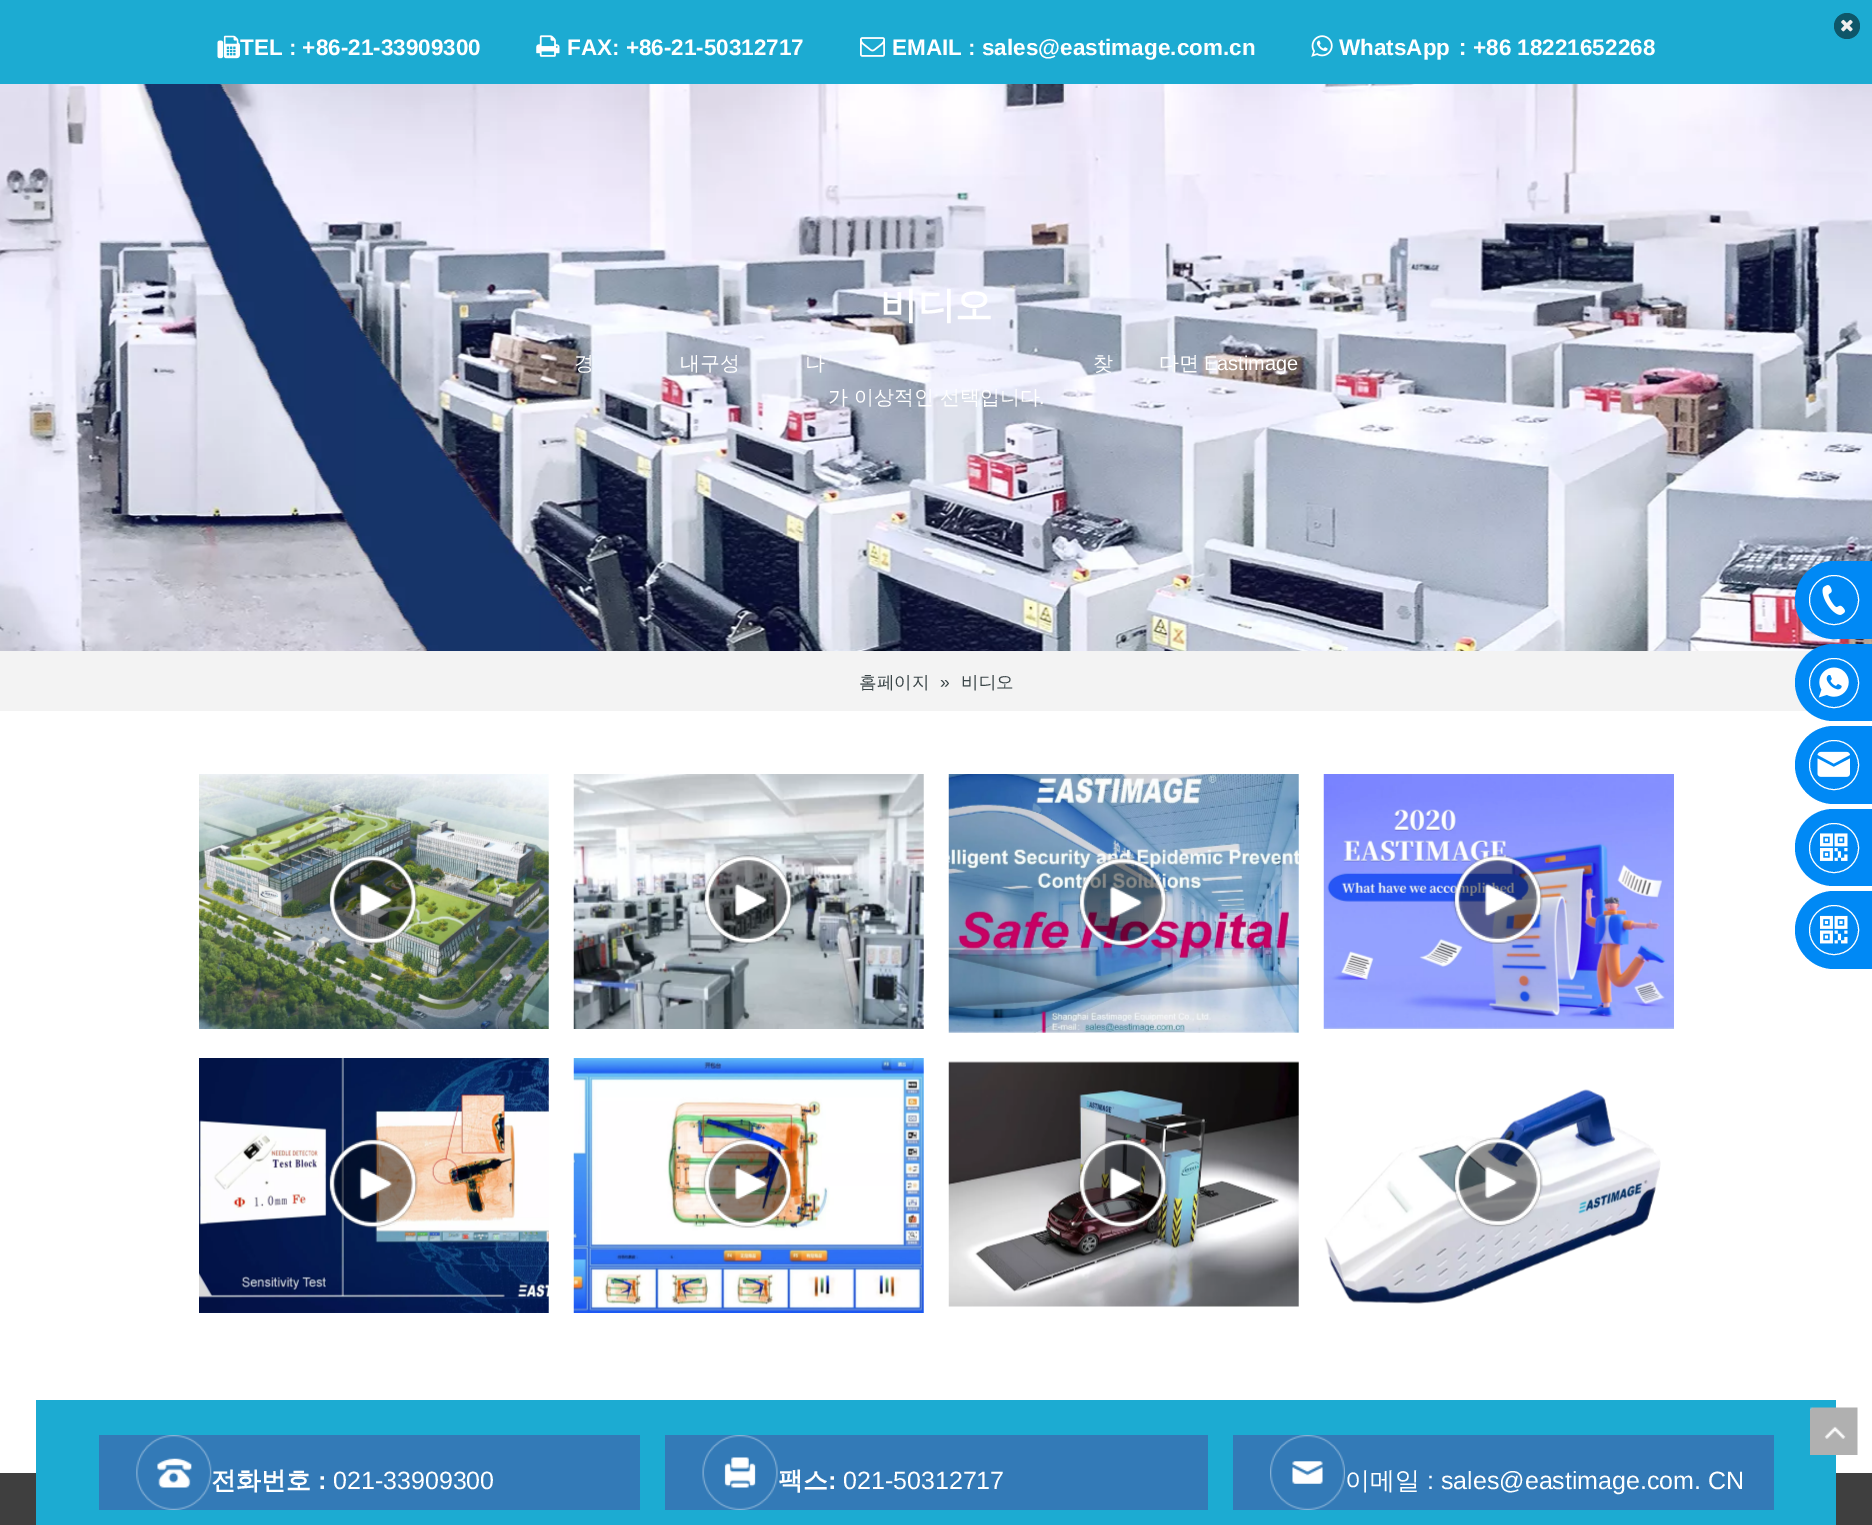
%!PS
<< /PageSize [1872 1525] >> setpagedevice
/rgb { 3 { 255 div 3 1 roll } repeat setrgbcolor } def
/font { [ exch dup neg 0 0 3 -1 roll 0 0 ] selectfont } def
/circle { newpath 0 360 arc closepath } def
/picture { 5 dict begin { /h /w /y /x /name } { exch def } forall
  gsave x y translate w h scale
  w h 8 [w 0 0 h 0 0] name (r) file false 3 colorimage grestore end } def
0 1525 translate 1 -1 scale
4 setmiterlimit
255 255 255 rgb
0 0 1872 1525 rectfill
28 171 210 rgb
0 0 1872 84 rectfill
14 86 105 rgb
1847 26 13 circle fill
(img/1.rgb) 1841 19 12 13 picture
(img/2.rgb) 217 35 23 24 picture
(img/3.rgb) 536 35 24 22 picture
(img/4.rgb) 860 37 25 20 picture
(img/5.rgb) 1311 35 22 22 picture
(img/6.rgb) 0 84 1872 567 picture
243 243 243 rgb
0 651 1812 60 rectfill
(img/7.rgb) 199 774 350 255 picture
(img/8.rgb) 328 855 90 89 picture
(img/9.rgb) 573 774 351 255 picture
(img/10.rgb) 701 854 92 90 picture
(img/11.rgb) 948 774 351 259 picture
(img/12.rgb) 1076 857 92 90 picture
(img/13.rgb) 1323 774 351 255 picture
(img/14.rgb) 1451 854 92 90 picture
(img/15.rgb) 199 1058 350 255 picture
(img/16.rgb) 326 1138 92 90 picture
(img/17.rgb) 573 1058 351 255 picture
(img/18.rgb) 701 1138 92 90 picture
(img/19.rgb) 948 1061 351 246 picture
(img/20.rgb) 1078 1138 90 90 picture
(img/21.rgb) 1324 1089 337 215 picture
(img/22.rgb) 1453 1137 90 90 picture
63 63 63 rgb
0 1473 1872 52 rectfill
28 171 210 rgb
36 1400 1800 125 rectfill
(img/23.rgb) 1810 1407 48 48 picture
0 137 245 rgb
1834 561 moveto 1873 561 lineto 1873 639 lineto 1834 639 lineto 1812.5 639 1795 621.5 1795 600 curveto 1795 578.5 1812.5 561 1834 561 curveto closepath fill
255 255 255 rgb
1834 600 24.5 circle stroke
(img/24.rgb) 1822 585 23 30 picture
0 137 245 rgb
1833.5 644 moveto 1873 644 lineto 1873 721 lineto 1833.5 721 lineto 1812 721 1795 704 1795 682.5 curveto 1795 661 1812 644 1833.5 644 curveto closepath fill
255 255 255 rgb
1834 683 24.5 circle stroke
(img/25.rgb) 1818 667 31 31 picture
0 137 245 rgb
1834 726 moveto 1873 726 lineto 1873 804 lineto 1834 804 lineto 1812.5 804 1795 786.5 1795 765 curveto 1795 743.5 1812.5 726 1834 726 curveto closepath fill
255 255 255 rgb
1834 765 24.5 circle stroke
(img/26.rgb) 1817 751 33 26 picture
0 137 245 rgb
1833.5 809 moveto 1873 809 lineto 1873 886 lineto 1833.5 886 lineto 1812 886 1795 869 1795 847.5 curveto 1795 826 1812 809 1833.5 809 curveto closepath fill
255 255 255 rgb
1834 848 24.5 circle stroke
(img/27.rgb) 1820 833 28 28 picture
0 137 245 rgb
1834 891 moveto 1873 891 lineto 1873 969 lineto 1834 969 lineto 1812.5 969 1795 951.5 1795 930 curveto 1795 908.5 1812.5 891 1834 891 curveto closepath fill
255 255 255 rgb
1834 930 24.5 circle stroke
(img/28.rgb) 1820 915 28 29 picture
51 122 183 rgb
99 1435 541 75 rectfill
(img/29.rgb) 136 1435 76 75 picture
665 1435 543 75 rectfill
(img/30.rgb) 702 1435 76 75 picture
1233 1435 541 75 rectfill
(img/31.rgb) 1270 1435 75 75 picture
/LiberationSans-Bold 22.5 font
255 255 255 rgb
[
  [(TEL : +86-21-33909300) 240 55]
  [(FAX: +86-21-50312717) 567 55]
  [(EMAIL : sales@eastimage.com.cn) 892 55]
  [(WhatsApp) 1339 55]
] { aload pop moveto show } forall
/WenQuanYiZenHei-Bold 22.5 font
1451 55 moveto (：) show
/LiberationSans-Bold 22.5 font
1473 55 moveto (+86 18221652268) show
/WenQuanYiZenHei-Bold 37.5 font
880 318 moveto (비디오) show
/WenQuanYiZenHei-Medium 20 font
[
  [(경) 574 370]
  [(내구성) 680 370]
  [(나) 805 370]
  [(찾) 1093 370]
  [(다면) 1159 370]
] { aload pop moveto show } forall
/LiberationSans-Regular 20 font
1204 370 moveto (Eastimage) show
/WenQuanYiZenHei-Medium 20 font
828 404 moveto (가 이상적인 선택입니다) show
/LiberationSans-Regular 20 font
1039 404 moveto (.) show
/WenQuanYiZenHei-Medium 17.5 font
57 68 71 rgb
859 688 moveto (홈페이지) show
/LiberationSans-Regular 17.5 font
940 688 moveto (») show
/WenQuanYiZenHei-Medium 17.5 font
961 688 moveto (비디오) show
/WenQuanYiZenHei-Bold 25 font
255 255 255 rgb
211 1489 moveto (전화번호) show
/LiberationSans-Bold 25 font
318 1489 moveto (:) show
/LiberationSans-Regular 25 font
333 1489 moveto (021-33909300) show
/WenQuanYiZenHei-Bold 25 font
778 1489 moveto (팩스) show
/LiberationSans-Bold 25 font
828 1489 moveto (:) show
/LiberationSans-Regular 25 font
843 1489 moveto (021-50312717) show
/WenQuanYiZenHei-Medium 25 font
1345 1489 moveto (이메일) show
/LiberationSans-Regular 25 font
1427 1489 moveto (: sales@eastimage.com. CN) show
showpage
